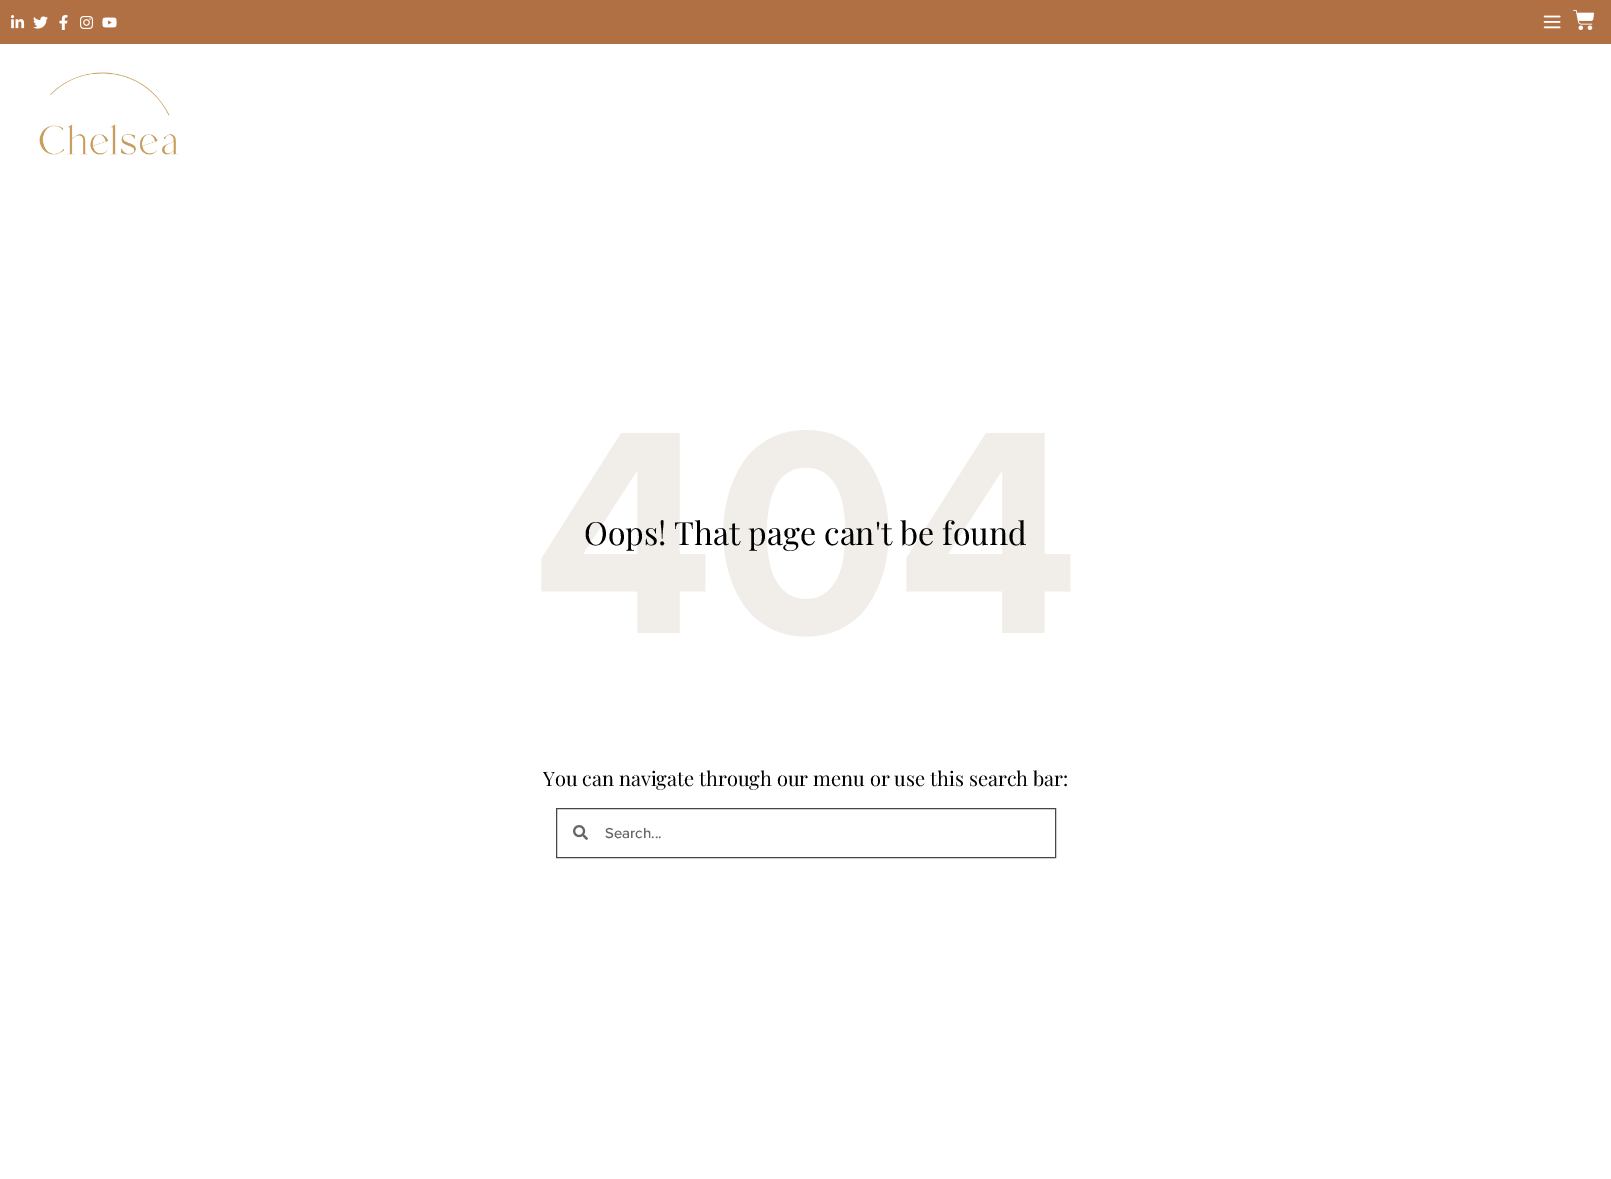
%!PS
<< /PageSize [1611 1179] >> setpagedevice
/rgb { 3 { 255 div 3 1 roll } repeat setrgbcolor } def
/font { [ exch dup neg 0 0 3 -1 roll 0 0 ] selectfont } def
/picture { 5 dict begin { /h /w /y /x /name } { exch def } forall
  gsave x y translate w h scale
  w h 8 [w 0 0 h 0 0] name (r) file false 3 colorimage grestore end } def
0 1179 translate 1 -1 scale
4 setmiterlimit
255 255 255 rgb
0 0 1611 1179 rectfill
177 112 68 rgb
0 0 1611 44 rectfill
(img/1.rgb) 11 15 14 14 picture
(img/2.rgb) 33 16 15 13 picture
(img/3.rgb) 59 15 9 15 picture
(img/4.rgb) 80 16 14 13 picture
(img/5.rgb) 102 17 15 11 picture
(img/6.rgb) 1543 15 18 14 picture
(img/7.rgb) 1573 9 22 22 picture
(img/8.rgb) 39 72 140 83 picture
(img/9.rgb) 541 430 530 207 picture
71 71 71 rgb
556.5 808.5 499 49 rectstroke
(img/10.rgb) 573 825 15 15 picture
/PlayfairDisplay-Regular 32 font
0 0 0 rgb
584 545 moveto (Oops! That page can't be found) show
/PlayfairDisplay-Regular 20 font
543 786 moveto (You can navigate through our menu or use this search bar:) show
/ProximaNova-Medium 15 font
102 102 102 rgb
605 838 moveto (Search...) show
showpage
